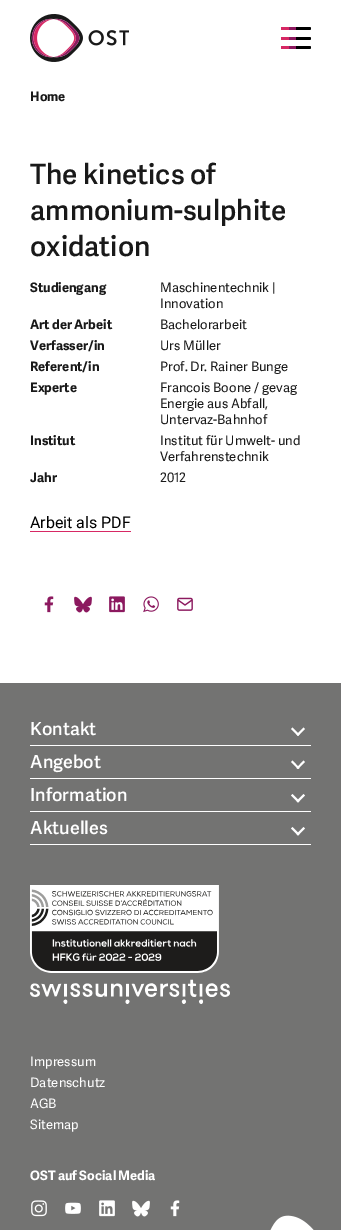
%!PS
<< /PageSize [341 1230] >> setpagedevice
/rgb { 3 { 255 div 3 1 roll } repeat setrgbcolor } def
/font { [ exch dup neg 0 0 3 -1 roll 0 0 ] selectfont } def
/roundrect { 5 dict begin { /r /h /w /y /x } { exch def } forall
  x r add y moveto x w add y 2 copy h add r arct x w add y h add x 1 index r arct
  x y h add x y r arct x y 2 copy exch w add exch r arct closepath end } def
/picture { 5 dict begin { /h /w /y /x /name } { exch def } forall
  gsave x y translate w h scale
  w h 8 [w 0 0 h 0 0] name (r) file false 3 colorimage grestore end } def
0 1230 translate 1 -1 scale
4 setmiterlimit
255 255 255 rgb
0 0 341 1230 rectfill
(img/1.rgb) 30 14 99 48 picture
0 0 0 rgb
281 27 30 3 1.5 roundrect fill
215 40 100 rgb
281 27 8 3 rectfill
140 25 95 rgb
289 27 7 3 rectfill
0 0 0 rgb
281 37 30 3 1.5 roundrect fill
215 40 100 rgb
281 37 8 3 rectfill
140 25 95 rgb
289 37 7 3 rectfill
0 0 0 rgb
281 46 30 3 1.5 roundrect fill
[
  [281 46 8 3 215 40 100]
  [289 46 7 3 140 25 95]
  [30 531 101 1 215 40 100]
] { aload pop rgb rectfill } forall
(img/2.rgb) 44 596 10 17 picture
(img/3.rgb) 74 596 18 17 picture
(img/4.rgb) 109 596 16 17 picture
(img/5.rgb) 143 596 16 17 picture
(img/6.rgb) 177 597 16 14 picture
115 115 114 rgb
0 683 341 547 rectfill
255 255 255 rgb
30 745 281 1 rectfill
303.5 727.5 moveto 305 729 lineto 298 736 lineto 296.5 734.5 lineto closepath fill
292.5 727.5 moveto 299.5 734.5 lineto 298 736 lineto 291 729 lineto closepath fill
30 778 281 1 rectfill
303.5 760.5 moveto 305 762 lineto 298 769 lineto 296.5 768 lineto closepath fill
292.5 760.5 moveto 299.5 768 lineto 298 769 lineto 291 762 lineto closepath fill
30 811 281 1 rectfill
303.5 794 moveto 305 795.5 lineto 298 802.5 lineto 296.5 801 lineto closepath fill
292.5 794 moveto 299.5 801 lineto 298 802.5 lineto 291 795.5 lineto closepath fill
30 844 281 1 rectfill
303.5 827 moveto 305 828.5 lineto 298 835.5 lineto 296.5 834 lineto closepath fill
292.5 827 moveto 299.5 834 lineto 298 835.5 lineto 291 828.5 lineto closepath fill
(img/7.rgb) 30 885 200 119 picture
(img/8.rgb) 31 1200 16 17 picture
(img/9.rgb) 65 1202 16 12 picture
(img/10.rgb) 99 1200 16 17 picture
(img/11.rgb) 132 1200 18 17 picture
(img/12.rgb) 170 1200 10 17 picture
(img/13.rgb) 270 1215 44 15 picture
/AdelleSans-Bold 13 font
25 25 25 rgb
30 101 moveto (Home) show
/AdelleSans-SemiBold 28 font
[
  [(The kinetics of) 30 184]
  [(ammonium-sulphite) 30 220]
  [(oxidation) 30 256]
] { aload pop moveto show } forall
/AdelleSans-Bold 13 font
30 292 moveto (Studiengang) show
/AdelleSans-Regular 13 font
160 292 moveto (Maschinentechnik |) show
160 308 moveto (Innovation) show
/AdelleSans-Bold 13 font
30 329 moveto (Art der Arbeit) show
/AdelleSans-Regular 13 font
160 329 moveto (Bachelorarbeit) show
/AdelleSans-Bold 13 font
30 350 moveto (Verfasser/in) show
/AdelleSans-Regular 13 font
160 350 moveto (Urs Müller) show
/AdelleSans-Bold 13 font
30 371 moveto (Referent/in) show
/AdelleSans-Regular 13 font
160 371 moveto (Prof. Dr. Rainer Bunge) show
/AdelleSans-Bold 13 font
30 392 moveto (Experte) show
/AdelleSans-Regular 13 font
[
  [(Francois Boone / gevag) 160 392]
  [(Energie aus Abfall,) 160 408]
  [(Untervaz-Bahnhof) 160 424]
] { aload pop moveto show } forall
/AdelleSans-Bold 13 font
30 445 moveto (Institut) show
/AdelleSans-Regular 13 font
160 445 moveto (Institut für Umwelt- und) show
160 461 moveto (Verfahrenstechnik) show
/AdelleSans-Bold 13 font
30 482 moveto (Jahr) show
/AdelleSans-Regular 13 font
160 482 moveto (2012) show
/Roboto-Regular 16 font
0 0 0 rgb
30 528 moveto (Arbeit als PDF) show
/AdelleSans-SemiBold 18 font
255 255 255 rgb
[
  [(Kontakt) 30 735]
  [(Angebot) 30 768]
  [(Information) 30 801]
  [(Aktuelles) 30 834]
] { aload pop moveto show } forall
/AdelleSans-Regular 13 font
[
  [(Impressum) 30 1066]
  [(Datenschutz) 30 1087]
  [(AGB) 30 1108]
  [(Sitemap) 30 1129]
] { aload pop moveto show } forall
/AdelleSans-Bold 13 font
30 1180 moveto (OST auf Social Media) show
showpage
